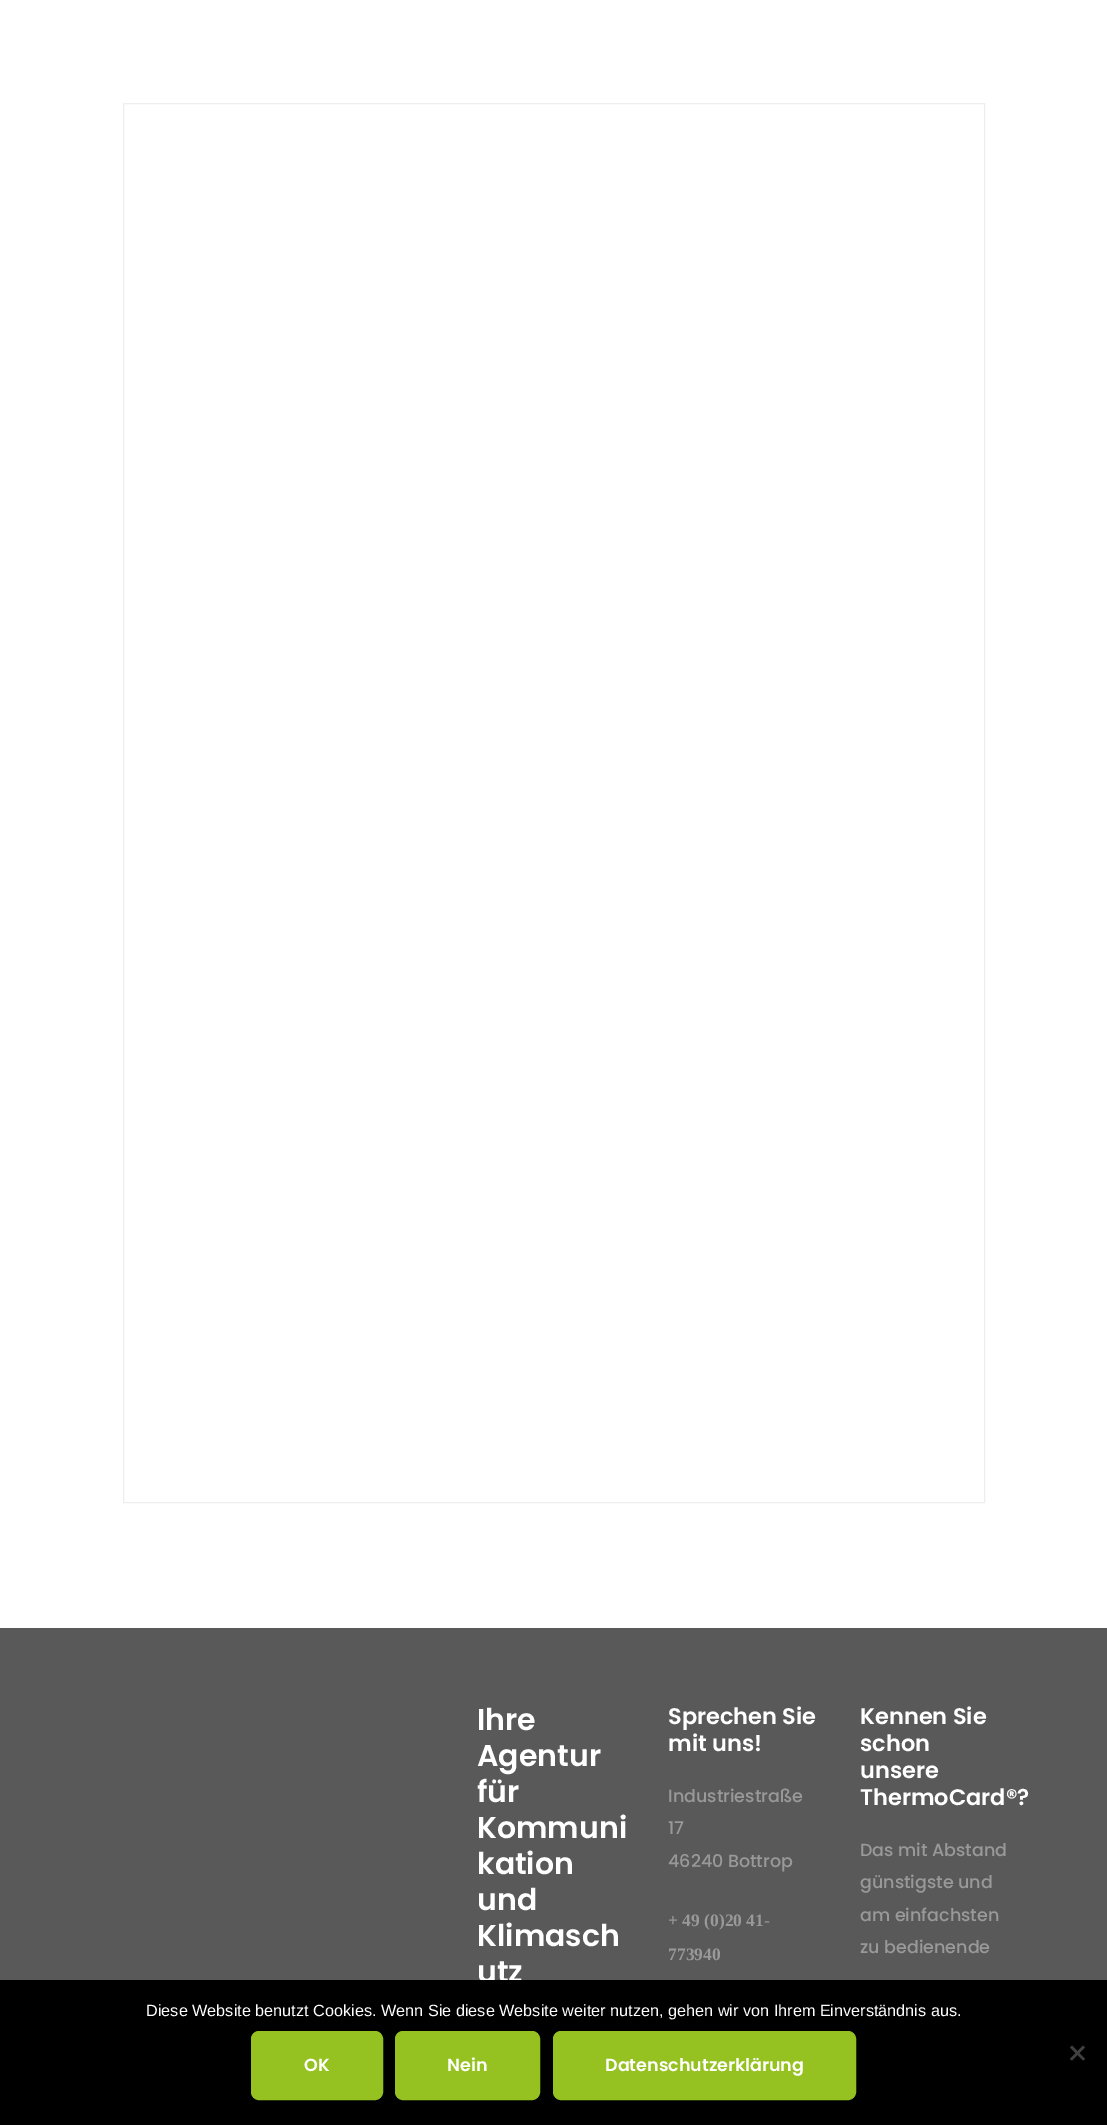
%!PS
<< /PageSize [1107 2125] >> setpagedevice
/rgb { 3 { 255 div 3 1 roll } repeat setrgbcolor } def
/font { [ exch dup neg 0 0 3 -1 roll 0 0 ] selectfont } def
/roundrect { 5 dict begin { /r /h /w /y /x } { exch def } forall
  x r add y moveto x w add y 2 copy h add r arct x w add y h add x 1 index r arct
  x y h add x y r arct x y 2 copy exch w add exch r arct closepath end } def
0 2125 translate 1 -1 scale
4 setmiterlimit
255 255 255 rgb
0 0 1107 2125 rectfill
238 238 238 rgb
123.5 103.5 861 1399 rectstroke
89 89 89 rgb
0 1628 1107 352 rectfill
/Poppins-SemiBold 30 font
255 255 255 rgb
[
  [(Ihre) 477 1730]
  [(Agentur) 477 1766]
  [(für) 477 1802]
  [(Kommuni) 477 1838]
  [(kation) 477 1874]
  [(und) 477 1910]
  [(Klimasch) 477 1946]
  [(utz) 477 1982]
] { aload pop moveto show } forall
/Poppins-SemiBold 22.5 font
668 1724 moveto (Sprechen Sie) show
668 1751 moveto (mit uns!) show
/Poppins-Medium 17.5 font
153 153 153 rgb
[
  [(Industriestraße) 668 1802]
  [(17) 668 1834]
  [(46240 Bottrop) 668 1867]
] { aload pop moveto show } forall
/LiberationSerif-Bold 17.5 font
668 1926 moveto (+ 49 \(0\)20 41-) show
668 1960 moveto (773940) show
/Poppins-SemiBold 22.5 font
255 255 255 rgb
[
  [(Kennen Sie) 860 1724]
  [(schon) 860 1751]
  [(unsere) 860 1778]
  [(ThermoCard®?) 860 1805]
] { aload pop moveto show } forall
/Poppins-Medium 17.5 font
153 153 153 rgb
[
  [(Das mit Abstand) 860 1856]
  [(günstigste und) 860 1888]
  [(am einfachsten) 860 1921]
  [(zu bedienende) 860 1953]
] { aload pop moveto show } forall
0 0 0 rgb
0 1980 1107 145 rectfill
/LiberationSans-Regular 16.25 font
255 255 255 rgb
146 2016 moveto (Diese Website benutzt Cookies. Wenn Sie diese Website weiter nutzen, gehen wir von Ihrem Einverständnis aus.) show
64 64 64 rgb
1083 2045.5 moveto 1085 2047.5 lineto 1072 2060.5 lineto 1070 2059 lineto closepath fill
1070 2047.5 moveto 1072 2045.5 lineto 1085 2059 lineto 1083 2060.5 lineto closepath fill
149 193 33 rgb
251.5 2031.5 131 68 7.5 roundrect gsave fill grestore
stroke
/Poppins-SemiBold 17.5 font
255 255 255 rgb
304 2071 moveto (OK) show
149 193 33 rgb
395.5 2031.5 144 68 7.5 roundrect gsave fill grestore
stroke
255 255 255 rgb
447 2071 moveto (Nein) show
149 193 33 rgb
553.5 2031.5 302 68 7.5 roundrect gsave fill grestore
stroke
255 255 255 rgb
605 2071 moveto (Datenschutzerklärung) show
showpage
